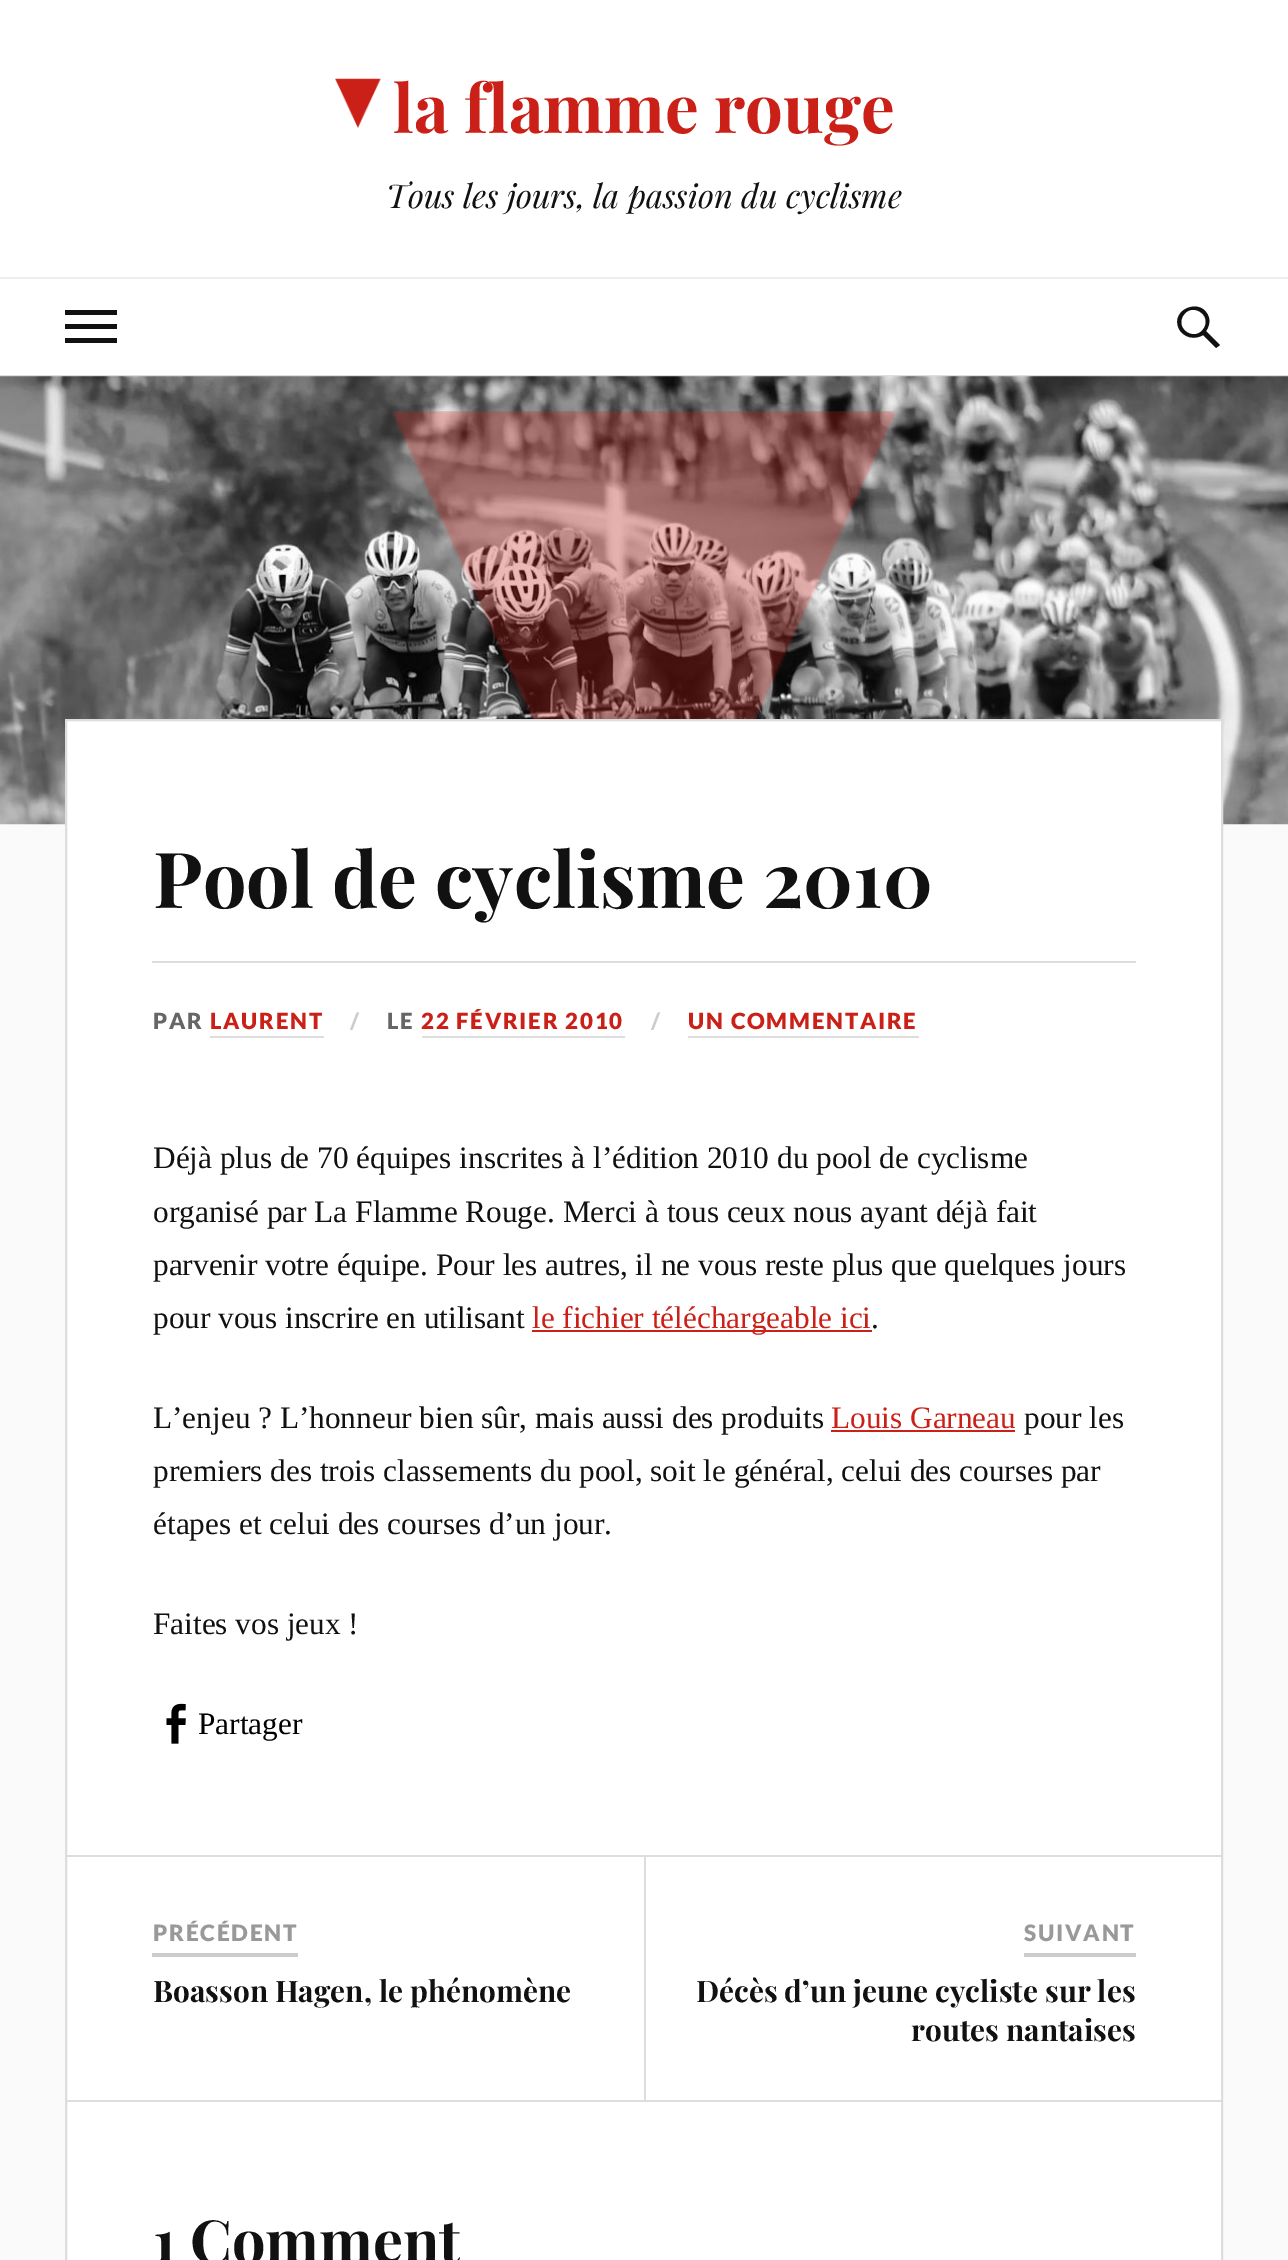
%!PS
<< /PageSize [1288 2260] >> setpagedevice
/rgb { 3 { 255 div 3 1 roll } repeat setrgbcolor } def
/font { [ exch dup neg 0 0 3 -1 roll 0 0 ] selectfont } def
/picture { 5 dict begin { /h /w /y /x /name } { exch def } forall
  gsave x y translate w h scale
  w h 8 [w 0 0 h 0 0] name (r) file false 3 colorimage grestore end } def
0 2260 translate 1 -1 scale
4 setmiterlimit
250 250 250 rgb
0 0 1288 2260 rectfill
255 255 255 rgb
0 0 1288 277 rectfill
(img/1.rgb) 335 78 46 50 picture
[
  [0 279 1288 96 255 255 255]
  [0 277 1288 2 238 238 238]
  [65 310 52 5 17 17 17]
  [65 324 52 5 17 17 17]
  [65 338 52 5 17 17 17]
] { aload pop rgb rectfill } forall
1220 345 moveto 1216 348 lineto 1203 335 lineto 1195 340 1184 338 1179 329 curveto 1169 309 1203 296 1209 318 curveto 1210 322 1209 327 1206 331 curveto closepath 1183 316 moveto 1175 330 1196 342 1204 328 curveto 1212 314 1191 302 1183 316 curveto closepath fill
221 221 221 rgb
0 375 1288 2 rectfill
(img/2.rgb) 0 376 1288 449 picture
(img/3.rgb) 391 411 505 308 picture
255 255 255 rgb
66 720 moveto 1222 720 lineto 1222 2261 lineto 66 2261 lineto closepath gsave fill grestore
221 221 221 rgb
2 setlinewidth
stroke
[
  [152 961 984 2 221 221 221]
  [210 1036 114 2 221 221 221]
  [422 1036 203 2 221 221 221]
  [688 1036 231 2 221 221 221]
  [532 1330 340 2 202 32 23]
  [831 1430 184 2 202 32 23]
] { aload pop rgb rectfill } forall
(img/4.rgb) 166 1703 20 41 picture
[
  [67 1855 1155 2 221 221 221]
  [644 1857 2 243 221 221 221]
  [152 1953 146 4 204 204 204]
  [1024 1953 112 4 204 204 204]
  [67 2100 1155 2 221 221 221]
] { aload pop rgb rectfill } forall
/PlayfairDisplay-Bold 67 font
202 32 23 rgb
393 133 moveto (la flamme rouge) show
/PlayfairDisplay-Italic 32.75 font
17 17 17 rgb
386 208 moveto (Tous les jours, la passion du cyclisme) show
/PlayfairDisplay-Bold 77.3 font
153 908 moveto (Pool de cyclisme 2010) show
/Lato-Black 22.25 font
102 102 102 rgb
153 1029 moveto 1.75 0 (PAR) ashow
202 32 23 rgb
210 1029 moveto 1.75 0 (LAURENT) ashow
204 204 204 rgb
350 1029 moveto 1.75 0 (/) ashow
102 102 102 rgb
387 1029 moveto 1.75 0 (LE) ashow
202 32 23 rgb
421 1029 moveto 1.75 0 (22 FÉVRIER 2010) ashow
204 204 204 rgb
651 1029 moveto 1.75 0 (/) ashow
202 32 23 rgb
688 1029 moveto 1.75 0 (UN COMMENTAIRE) ashow
/LiberationSerif-Regular 31.25 font
17 17 17 rgb
[
  [(Déjà plus de 70 équipes inscrites à l’édition 2010 du pool de cyclisme) 153 1168]
  [(organisé par La Flamme Rouge. Merci à tous ceux nous ayant déjà fait) 153 1222]
  [(parvenir votre équipe. Pour les autres, il ne vous reste plus que quelques jours) 153 1275]
  [(pour vous inscrire en utilisant) 153 1328]
] { aload pop moveto show } forall
202 32 23 rgb
532 1328 moveto (le fichier téléchargeable ici) show
17 17 17 rgb
871 1328 moveto (.) show
153 1428 moveto (L’enjeu ? L’honneur bien sûr, mais aussi des produits) show
202 32 23 rgb
831 1428 moveto (Louis Garneau) show
17 17 17 rgb
[
  [(pour les) 1024 1428]
  [(premiers des trois classements du pool, soit le général, celui des courses par) 153 1481]
  [(étapes et celui des courses d’un jour.) 153 1534]
  [(Faites vos jeux !) 153 1634]
] { aload pop moveto show } forall
0 0 0 rgb
198 1734 moveto (Partager) show
/Lato-Black 22.5 font
153 153 153 rgb
153 1941 moveto 1.75 0 (PRÉCÉDENT) ashow
/PlayfairDisplay-Bold 29.75 font
17 17 17 rgb
153 2002 moveto (Boasson Hagen, le phénomène) show
/Lato-Black 22.5 font
153 153 153 rgb
1024 1941 moveto 1.75 0 (SUIVANT) ashow
/PlayfairDisplay-Bold 29.75 font
17 17 17 rgb
696 2002 moveto (Décès d’un jeune cycliste sur les) show
911 2041 moveto (routes nantaises) show
/PlayfairDisplay-Bold 59.5 font
153 2263 moveto (1 Comment) show
showpage
